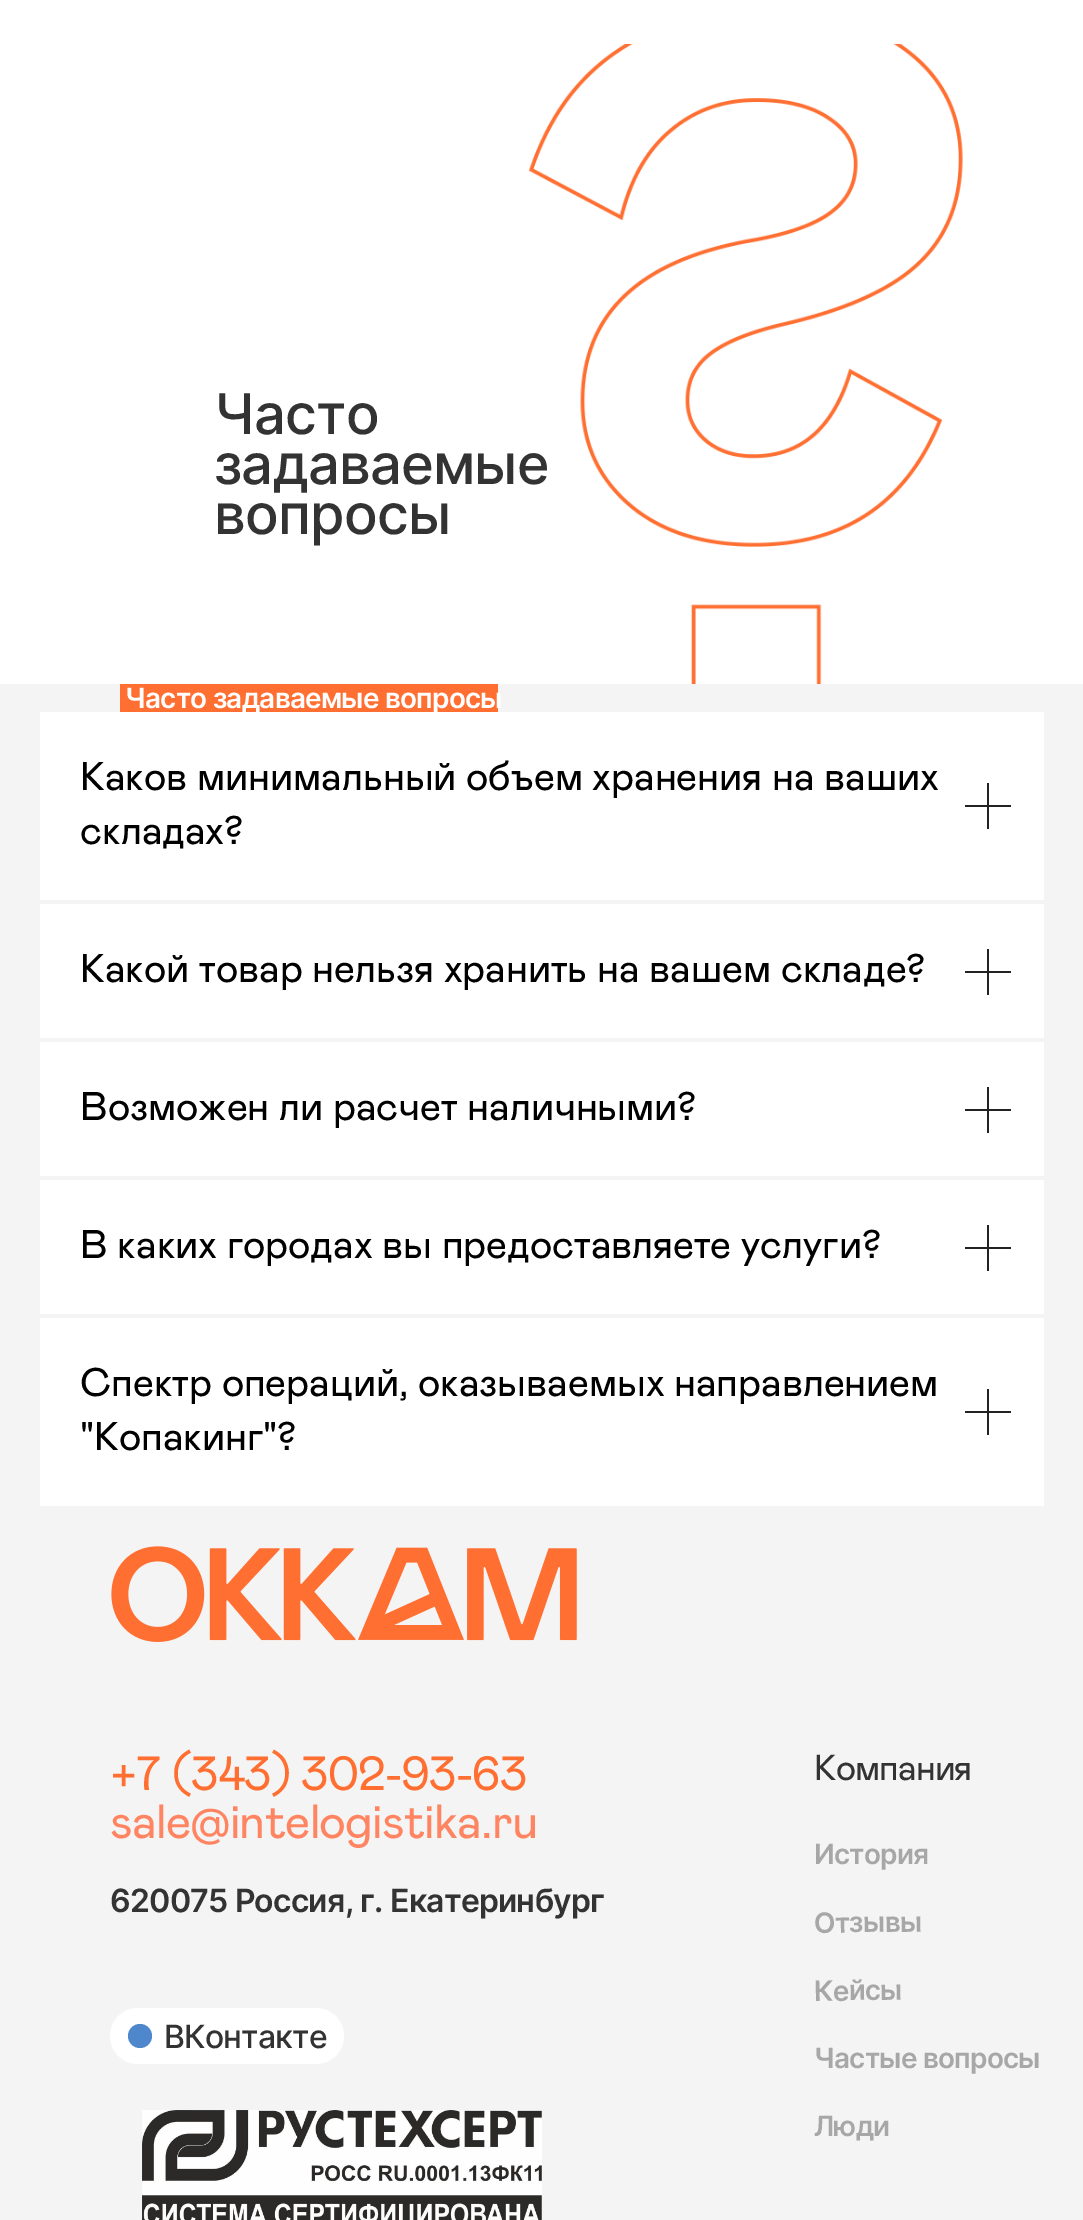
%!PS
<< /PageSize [1083 2220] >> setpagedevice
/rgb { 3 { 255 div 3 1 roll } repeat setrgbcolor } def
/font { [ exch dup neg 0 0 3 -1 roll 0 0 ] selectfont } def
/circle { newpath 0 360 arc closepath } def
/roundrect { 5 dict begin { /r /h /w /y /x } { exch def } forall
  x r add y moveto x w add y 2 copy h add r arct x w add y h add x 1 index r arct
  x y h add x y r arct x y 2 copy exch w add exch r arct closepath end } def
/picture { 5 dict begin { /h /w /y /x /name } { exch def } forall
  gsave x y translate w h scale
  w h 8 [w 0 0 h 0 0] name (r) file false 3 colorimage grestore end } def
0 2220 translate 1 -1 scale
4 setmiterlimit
255 255 255 rgb
0 0 1083 2220 rectfill
[
  [0 684 1083 1536 244 244 244]
  [120 684 378 28 255 111 49]
  [40 712 1004 188 255 255 255]
  [965 805 46 2 34 34 34]
  [987 783 2 46 34 34 34]
  [40 904 1004 134 255 255 255]
  [965 971 46 2 34 34 34]
  [987 949 2 46 34 34 34]
  [40 1042 1004 134 255 255 255]
  [965 1109 46 2 34 34 34]
  [987 1087 2 46 34 34 34]
  [40 1180 1004 134 255 255 255]
  [965 1247 46 2 34 34 34]
  [987 1225 2 46 34 34 34]
  [40 1318 1004 188 255 255 255]
  [965 1411 46 2 34 34 34]
  [987 1389 2 46 34 34 34]
] { aload pop rgb rectfill } forall
(img/2.rgb) 111 1546 466 96 picture
255 255 255 rgb
110 2008 234 56 28 roundrect fill
78 135 203 rgb
140 2036 12 circle fill
(img/3.rgb) 142 2110 400 110 picture
/Inter-Medium 56 font
51 51 51 rgb
214 434 moveto -0.8 0 (Часто) ashow
214 484 moveto -0.8 0 (задаваемые) ashow
214 534 moveto -0.8 0 (вопросы) ashow
(img/1.rgb) 528 44 435 640 picture
gsave
0 684 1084 28 rectclip
/Inter-SemiBold 28 font
255 255 255 rgb
125 708 moveto -0.8 0 (Часто задаваемые вопросы) ashow
grestore
/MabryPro-Regular 40 font
0 0 0 rgb
[
  [(Каков минимальный объем хранения на ваших) 80 790]
  [(складах?) 80 844]
  [(Какой товар нельзя хранить на вашем складе?) 80 982]
  [(Возможен ли расчет наличными?) 80 1120]
  [(В каких городах вы предоставляете услуги?) 80 1258]
  [(Спектр операций, оказываемых направлением) 80 1396]
  [("Копакинг"?) 80 1450]
] { aload pop moveto show } forall
/MabryPro-Regular 48 font
255 111 49 rgb
110 1790 moveto -0.8 0 (+7 \(343\) 302-93-63) ashow
255 133 98 rgb
110 1838 moveto -0.8 0 (sale@intelogistika.ru) ashow
/MabryPro-Regular 36 font
51 51 51 rgb
814 1780 moveto -0.8 0 (Компания) ashow
/Inter-SemiBold 28 font
167 167 167 rgb
814 1864 moveto -0.8 0 (История) ashow
/Inter-SemiBold 32 font
51 51 51 rgb
110 1912 moveto -0.8 0 (620075 Россия, г. Екатеринбург) ashow
/Inter-SemiBold 28 font
167 167 167 rgb
gsave 814 1933 translate -1 rotate 0 0 moveto -0.8 0 (Отзывы) ashow grestore
gsave 814 2001 translate -1 rotate 0 0 moveto -0.8 0 (Кейсы) ashow grestore
/Inter-Medium 32 font
51 51 51 rgb
164 2048 moveto -0.8 0 (ВКонтакте) ashow
/Inter-SemiBold 28 font
167 167 167 rgb
814 2068 moveto -0.8 0 (Частые вопросы) ashow
814 2136 moveto -0.8 0 (Люди) ashow
showpage
